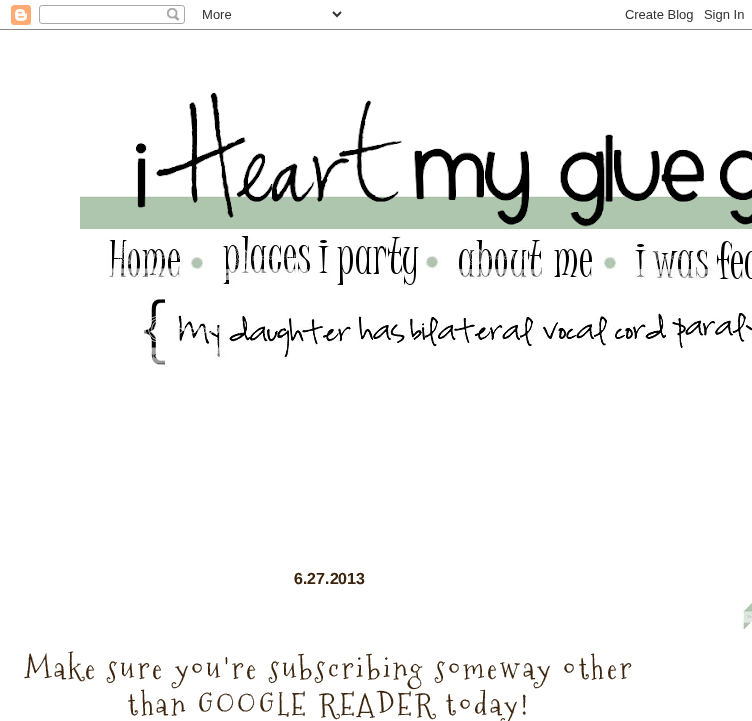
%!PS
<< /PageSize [752 721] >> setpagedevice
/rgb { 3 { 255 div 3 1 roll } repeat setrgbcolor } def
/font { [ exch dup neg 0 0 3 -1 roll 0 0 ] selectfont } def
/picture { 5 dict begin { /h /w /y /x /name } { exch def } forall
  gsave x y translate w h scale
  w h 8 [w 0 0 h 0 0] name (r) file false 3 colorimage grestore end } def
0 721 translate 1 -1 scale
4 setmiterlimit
255 255 255 rgb
0 0 752 721 rectfill
(img/1.rgb) 0 5 752 25 picture
(img/2.rgb) 80 92 672 137 picture
(img/3.rgb) 107 237 96 40 picture
(img/4.rgb) 221 235 220 52 picture
(img/5.rgb) 456 239 160 40 picture
(img/6.rgb) 635 239 117 40 picture
(img/7.rgb) 143 299 609 66 picture
(img/8.rgb) 742 602 10 30 picture
/LiberationSans-Bold 16 font
59 36 11 rgb
294 584 moveto (6.27.2013) show
/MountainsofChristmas-Regular 30 font
25 679 moveto 3 0 (Make sure you're subscribing someway other) ashow
128 715 moveto 3 0 (than GOOGLE READER today!) ashow
showpage
